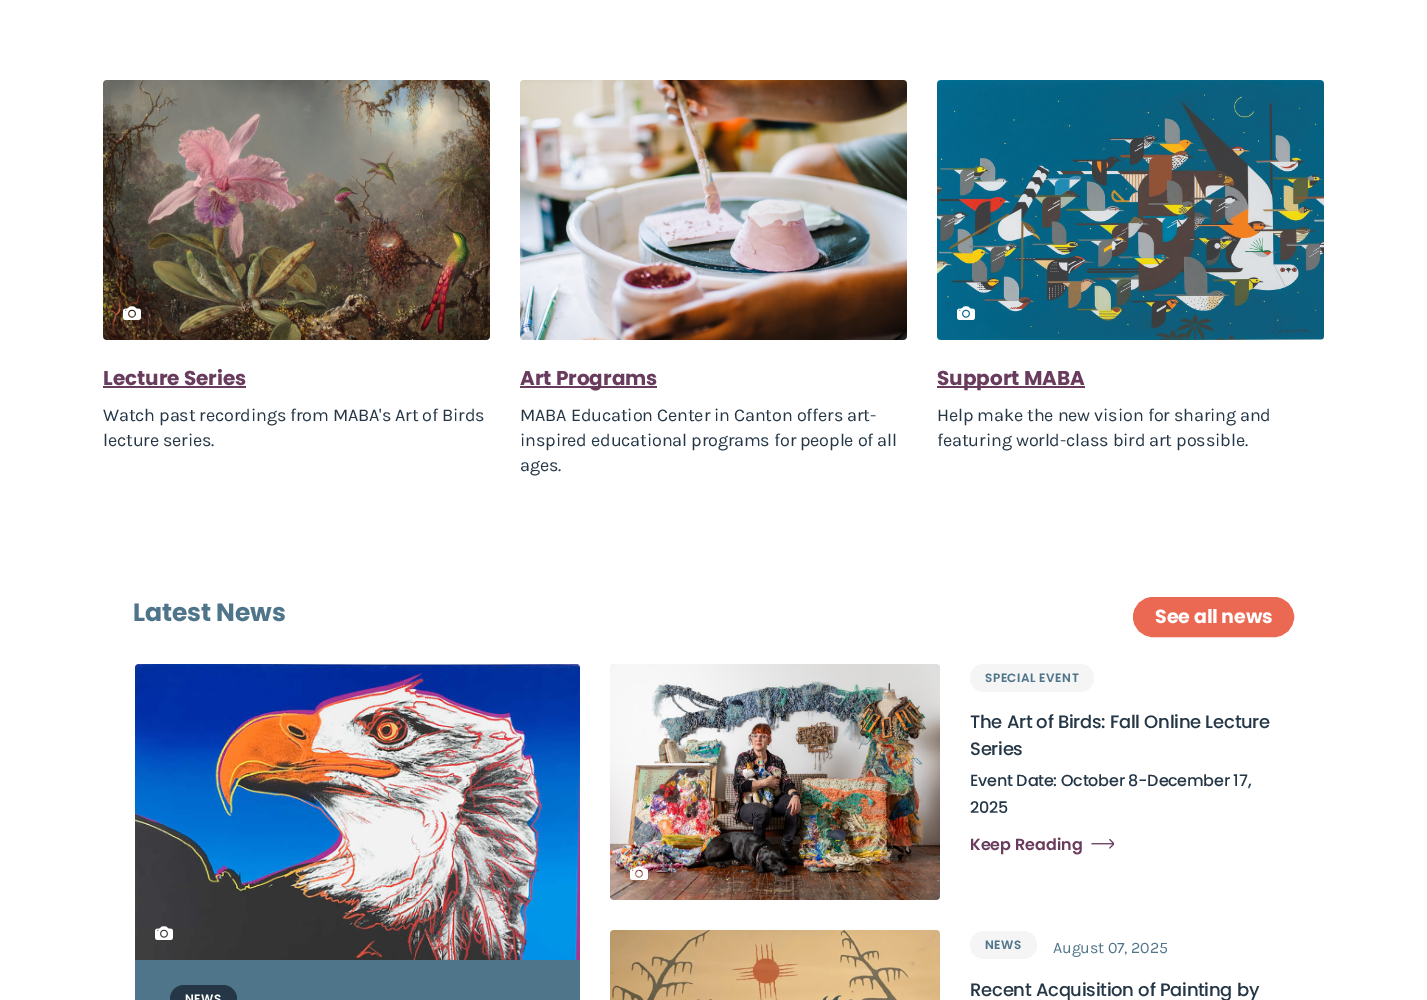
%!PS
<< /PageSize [1427 1000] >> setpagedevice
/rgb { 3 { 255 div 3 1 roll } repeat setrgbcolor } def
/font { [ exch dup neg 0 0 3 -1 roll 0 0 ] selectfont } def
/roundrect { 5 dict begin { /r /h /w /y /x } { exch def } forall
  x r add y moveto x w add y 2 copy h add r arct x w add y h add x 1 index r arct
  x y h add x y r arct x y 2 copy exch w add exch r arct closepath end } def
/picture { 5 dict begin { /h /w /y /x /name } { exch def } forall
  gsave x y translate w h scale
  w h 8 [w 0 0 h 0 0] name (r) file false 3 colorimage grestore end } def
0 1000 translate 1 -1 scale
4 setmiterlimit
255 255 255 rgb
0 0 1427 1000 rectfill
(img/1.rgb) 103 80 387 260 picture
(img/2.rgb) 123 306 18 14 picture
105 60 94 rgb
103 386 143 2 rectfill
(img/3.rgb) 520 80 387 260 picture
520 386 137 2 rectfill
(img/4.rgb) 937 80 387 260 picture
(img/5.rgb) 957 306 18 14 picture
937 386 148 2 rectfill
235 104 82 rgb
1134 598 159 38 19 roundrect gsave fill grestore
2 setlinewidth
stroke
79 117 139 rgb
135 664 445 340 4 roundrect fill
(img/6.rgb) 135 664 445 296 picture
(img/7.rgb) 155 926 18 14 picture
37 55 70 rgb
170 985 67 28 14 roundrect fill
(img/8.rgb) 610 664 330 236 picture
(img/9.rgb) 630 866 18 14 picture
245 245 245 rgb
970 664 124 28 14 roundrect fill
(img/10.rgb) 1091 838 23 11 picture
(img/11.rgb) 610 930 330 70 picture
970 931 67 28 14 roundrect fill
/Poppins-Bold 20 font
105 60 94 rgb
103 385 moveto (Lecture Series) show
/Karla-Regular 18 font
37 55 70 rgb
103 421 moveto -0.15 0 (Watch past recordings from MABA's Art of Birds) ashow
103 446 moveto -0.15 0 (lecture series.) ashow
/Poppins-Bold 20 font
105 60 94 rgb
520 385 moveto (Art Programs) show
/Karla-Regular 18 font
37 55 70 rgb
520 421 moveto -0.15 0 (MABA Education Center in Canton offers art-) ashow
520 446 moveto -0.15 0 (inspired educational programs for people of all) ashow
520 471 moveto -0.15 0 (ages.) ashow
/Poppins-Bold 20 font
105 60 94 rgb
937 385 moveto (Support MABA) show
/Karla-Regular 18 font
37 55 70 rgb
937 421 moveto -0.15 0 (Help make the new vision for sharing and) ashow
937 446 moveto -0.15 0 (featuring world-class bird art possible.) ashow
/Poppins-Bold 25 font
79 117 139 rgb
133 621 moveto -0.1 0 (Latest News) ashow
/Poppins-Bold 19 font
255 255 255 rgb
1155 623 moveto -0.1 0 (See all news) ashow
/Poppins-SemiBold 12 font
185 1003 moveto 0.5 0 (NEWS) ashow
79 117 139 rgb
985 682 moveto 0.5 0 (SPECIAL EVENT) ashow
/Poppins-Medium 18 font
37 55 70 rgb
970 728 moveto -0.25 0 (The Art of Birds: Fall Online Lecture) ashow
970 755 moveto -0.25 0 (Series) ashow
/Poppins-Medium 16 font
970 786 moveto -0.25 0 (Event Date: October 8-December 17,) ashow
970 813 moveto -0.25 0 (2025) ashow
/Poppins-SemiBold 16 font
105 60 94 rgb
970 850 moveto (Keep Reading) show
/Poppins-SemiBold 12 font
79 117 139 rgb
985 949 moveto 0.5 0 (NEWS) ashow
/Karla-Regular 16 font
1053 953 moveto -0.15 0 (August 07, 2025) ashow
/Poppins-Medium 18 font
37 55 70 rgb
970 996 moveto -0.25 0 (Recent Acquisition of Painting by) ashow
showpage
